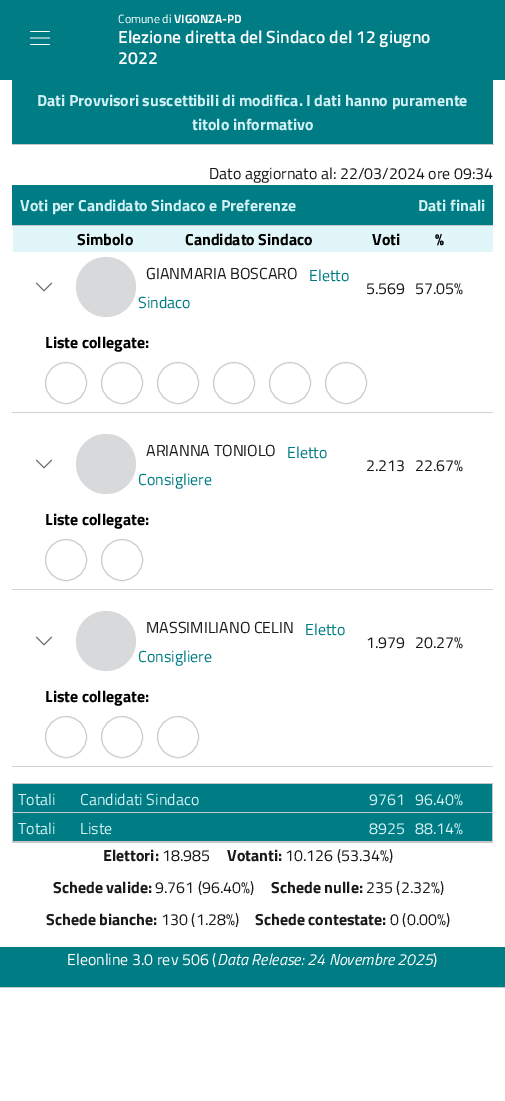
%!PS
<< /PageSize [505 1101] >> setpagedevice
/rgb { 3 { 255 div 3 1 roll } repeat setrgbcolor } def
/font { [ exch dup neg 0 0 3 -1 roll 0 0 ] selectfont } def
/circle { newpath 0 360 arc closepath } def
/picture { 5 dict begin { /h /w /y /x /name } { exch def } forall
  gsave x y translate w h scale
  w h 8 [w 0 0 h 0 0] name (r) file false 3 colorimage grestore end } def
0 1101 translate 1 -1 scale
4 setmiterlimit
255 255 255 rgb
0 0 505 1101 rectfill
0 124 133 rgb
0 0 505 80 rectfill
(img/1.rgb) 30 31 20 14 picture
[
  [12 80 481 64 0 124 133]
  [12 144 482 1 197 199 201]
  [12 185 481 40 0 124 133]
  [12 225 481 1 197 199 201]
  [12 842 481 1 197 199 201]
  [13 226 480 26 224 246 248]
] { aload pop rgb rectfill } forall
(img/2.rgb) 35 282 18 10 picture
216 217 218 rgb
106 287 30 circle fill
210 207 218 rgb
12 412 481 1 rectfill
204 204 204 rgb
66 383 20.5 circle stroke
122 383 20.5 circle stroke
178 383 20.5 circle stroke
234 383 20.5 circle stroke
290 383 20.5 circle stroke
346 383 20.5 circle stroke
(img/2.rgb) 35 459 18 10 picture
216 217 218 rgb
106 464 30 circle fill
210 207 218 rgb
12 589 481 1 rectfill
204 204 204 rgb
66 560 20.5 circle stroke
122 560 20.5 circle stroke
(img/2.rgb) 35 636 18 10 picture
216 217 218 rgb
106 641 30 circle fill
210 207 218 rgb
12 766 481 1 rectfill
204 204 204 rgb
66 737 20.5 circle stroke
122 737 20.5 circle stroke
178 737 20.5 circle stroke
[
  [13 784 479 28 0 124 133]
  [12 783 481 1 197 199 201]
  [12 812 481 1 197 199 201]
  [492 812 1 30 197 199 201]
  [492 783 1 30 197 199 201]
  [12 841 481 1 197 199 201]
  [12 812 1 30 197 199 201]
  [12 783 1 30 197 199 201]
  [13 813 479 28 0 124 133]
  [0 947 505 40 0 124 133]
  [0 987 505 1 197 199 201]
] { aload pop rgb rectfill } forall
/TitilliumWeb-Regular 12 font
255 255 255 rgb
118 23 moveto (Comune di) show
/TitilliumWeb-Bold 12 font
174 23 moveto (VIGONZA-PD) show
/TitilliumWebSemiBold-SemiBold 17.6 font
118 43 moveto (Elezione diretta del Sindaco del 12 giugno) show
118 64 moveto (2022) show
/TitilliumWeb-Bold 16 font
208 240 243 rgb
37 106 moveto (Dati Provvisori suscettibili di modifica. I dati hanno puramente) show
192 130 moveto (titolo informativo) show
/TitilliumWeb-Regular 16 font
26 26 26 rgb
209 179 moveto (Dato aggiornato al: 22/03/2024 ore 09:34) show
/TitilliumWeb-Bold 16 font
208 240 243 rgb
20 211 moveto (Voti per Candidato Sindaco e Preferenze) show
418 211 moveto (Dati finali) show
0 0 0 rgb
[
  [(Simbolo) 77 245]
  [(Candidato Sindaco) 185 245]
  [(Voti) 372 245]
  [(%) 435 245]
] { aload pop moveto show } forall
/TitilliumWeb-Regular 16 font
26 26 26 rgb
146 279 moveto (GIANMARIA BOSCARO) show
0 124 133 rgb
309 281 moveto (Eletto) show
138 308 moveto (Sindaco) show
26 26 26 rgb
366 294 moveto (5.569) show
415 294 moveto (57.05%) show
/TitilliumWeb-Bold 16 font
0 0 0 rgb
45 348 moveto (Liste collegate:) show
/TitilliumWeb-Regular 16 font
26 26 26 rgb
146 456 moveto (ARIANNA TONIOLO) show
0 124 133 rgb
287 458 moveto (Eletto) show
138 485 moveto (Consigliere) show
26 26 26 rgb
366 471 moveto (2.213) show
415 471 moveto (22.67%) show
/TitilliumWeb-Bold 16 font
0 0 0 rgb
45 525 moveto (Liste collegate:) show
/TitilliumWeb-Regular 16 font
26 26 26 rgb
146 633 moveto (MASSIMILIANO CELIN) show
0 124 133 rgb
305 635 moveto (Eletto) show
138 662 moveto (Consigliere) show
26 26 26 rgb
366 648 moveto (1.979) show
415 648 moveto (20.27%) show
/TitilliumWeb-Bold 16 font
0 0 0 rgb
45 702 moveto (Liste collegate:) show
/TitilliumWeb-Regular 16 font
208 240 243 rgb
[
  [(Totali) 18 805]
  [(Candidati Sindaco) 80 805]
  [(9761) 369 805]
  [(96.40%) 415 805]
  [(Totali) 18 834]
  [(Liste) 80 834]
  [(8925) 369 834]
  [(88.14%) 415 834]
] { aload pop moveto show } forall
/TitilliumWeb-Bold 16 font
26 26 26 rgb
103 861 moveto (Elettori:) show
/TitilliumWeb-Regular 16 font
162 861 moveto (18.985) show
/TitilliumWeb-Bold 16 font
227 861 moveto (Votanti:) show
/TitilliumWeb-Regular 16 font
285 861 moveto (10.126 \(53.34%\)) show
/TitilliumWeb-Bold 16 font
53 893 moveto (Schede valide:) show
/TitilliumWeb-Regular 16 font
155 893 moveto (9.761 \(96.40%\)) show
/TitilliumWeb-Bold 16 font
271 893 moveto (Schede nulle:) show
/TitilliumWeb-Regular 16 font
366 893 moveto (235 \(2.32%\)) show
/TitilliumWeb-Bold 16 font
46 925 moveto (Schede bianche:) show
/TitilliumWeb-Regular 16 font
161 925 moveto (130 \(1.28%\)) show
/TitilliumWeb-Bold 16 font
255 925 moveto (Schede contestate:) show
/TitilliumWeb-Regular 16 font
390 925 moveto (0 \(0.00%\)) show
255 255 255 rgb
67 965 moveto (Eleonline 3.0 rev 506 \() show
/TitilliumWeb-Italic 16 font
217 965 moveto (Data Release: 24 Novembre 2025) show
/TitilliumWeb-Regular 16 font
433 965 moveto (\)) show
showpage
